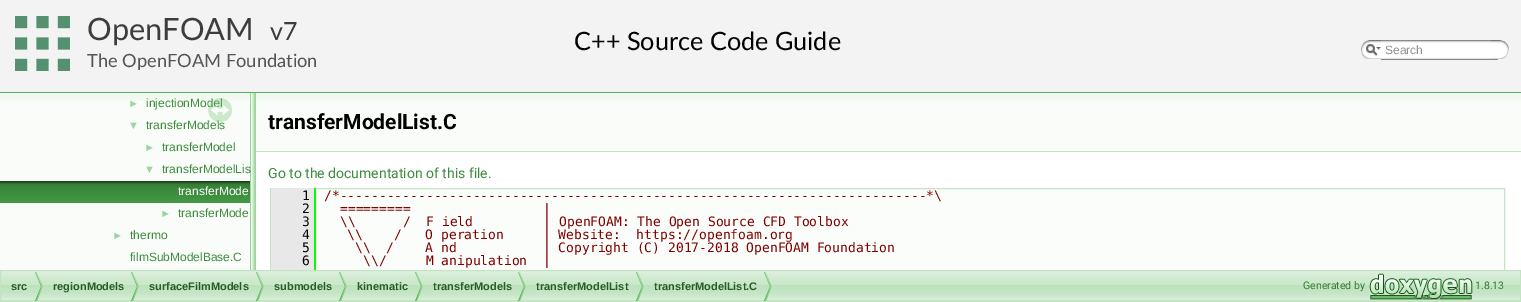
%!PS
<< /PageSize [1521 302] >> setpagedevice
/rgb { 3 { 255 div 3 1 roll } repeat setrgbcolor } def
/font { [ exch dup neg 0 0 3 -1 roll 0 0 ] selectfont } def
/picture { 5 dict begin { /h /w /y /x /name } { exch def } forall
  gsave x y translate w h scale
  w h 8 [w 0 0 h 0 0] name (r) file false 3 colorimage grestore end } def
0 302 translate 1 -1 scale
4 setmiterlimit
255 255 255 rgb
0 0 1521 302 rectfill
243 243 243 rgb
0 0 1521 92 rectfill
83 180 83 rgb
0 92 1521 1 rectfill
(img/1.rgb) 15 16 55 55 picture
(img/2.rgb) 1361 40 20 19 picture
(img/3.rgb) 1366 44 15 12 picture
(img/4.rgb) 1381 40 117 20 picture
(img/5.rgb) 1491 40 18 19 picture
249 252 249 rgb
0 101 250 169 rectfill
(img/6.rgb) 0 93 250 8 picture
(img/7.rgb) 0 181 250 22 picture
(img/9.rgb) 250 93 6 177 picture
256 101 1265 50 rectfill
(img/10.rgb) 256 93 1265 8 picture
196 229 196 rgb
256 151 1265 1 rectfill
251 253 251 rgb
316 189 1188 81 rectfill
196 229 196 rgb
270.5 188.5 1234 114 rectstroke
[
  [271 188 43 78 232 232 232]
  [314 188 2 80 0 255 0]
  [271 266 45 4 232 232 232]
  [314 266 2 4 0 255 0]
] { aload pop rgb rectfill } forall
(img/11.rgb) 1 271 1519 30 picture
194 228 194 rgb
0.5 270.5 1520 31 rectstroke
(img/12.rgb) 35 272 8 29 picture
(img/12.rgb) 131 272 8 29 picture
(img/12.rgb) 256 272 8 29 picture
(img/12.rgb) 339 272 8 29 picture
(img/12.rgb) 415 272 8 29 picture
(img/12.rgb) 518 272 8 29 picture
(img/12.rgb) 636 272 8 29 picture
(img/12.rgb) 764 272 8 29 picture
(img/13.rgb) 1369 273 104 27 picture
/Lato-Regular 30.75 font
61 61 61 rgb
87 40 moveto (OpenFOAM) show
/Lato-Regular 25 font
270 40 moveto (v7) show
/Lato-Regular 18.25 font
85 85 85 rgb
87 67 moveto (The OpenFOAM Foundation) show
/LiberationSans-Regular 12 font
144 144 144 rgb
1385 54 moveto (Search) show
/Lato-Regular 25.25 font
0 0 0 rgb
574 50 moveto (C++ Source Code Guide) show
/LiberationSans-Regular 11 font
156 212 156 rgb
128 107 moveto (►) show
/LiberationSans-Regular 12 font
61 140 61 rgb
146 107 moveto (injectionModel) show
/LiberationSans-Regular 11 font
156 212 156 rgb
128 129 moveto (▼) show
/LiberationSans-Regular 12 font
61 140 61 rgb
146 129 moveto (transferModels) show
/LiberationSans-Regular 11 font
156 212 156 rgb
144 151 moveto (►) show
/LiberationSans-Regular 12 font
61 140 61 rgb
162 151 moveto (transferModel) show
/LiberationSans-Regular 11 font
156 212 156 rgb
144 173 moveto (▼) show
/LiberationSans-Regular 12 font
61 140 61 rgb
162 173 moveto (transferModelLis) show
255 255 255 rgb
178 195 moveto (transferMode) show
/LiberationSans-Regular 11 font
156 212 156 rgb
160 217 moveto (►) show
/LiberationSans-Regular 12 font
61 140 61 rgb
178 217 moveto (transferMode) show
/LiberationSans-Regular 11 font
156 212 156 rgb
112 239 moveto (►) show
/LiberationSans-Regular 12 font
61 140 61 rgb
130 239 moveto (thermo) show
130 261 moveto (filmSubModelBase.C) show
(img/8.rgb) 208 98 24 24 picture
/Roboto-Bold 21 font
0 0 0 rgb
268 129 moveto (transferModelList.C) show
/Roboto-Regular 14 font
61 140 61 rgb
268 178 moveto (Go to the documentation of this file.) show
/DejaVuSansMono-Regular 13 font
0 0 0 rgb
302 200 moveto (1) show
128 0 0 rgb
324 200 moveto (/*---------------------------------------------------------------------------*\\) show
0 0 0 rgb
302 213 moveto (2) show
128 0 0 rgb
340 213 moveto (=========                 |) show
0 0 0 rgb
302 226 moveto (3) show
128 0 0 rgb
340 226 moveto (\\\\      /  F ield         | OpenFOAM: The Open Source CFD Toolbox) show
0 0 0 rgb
302 239 moveto (4) show
128 0 0 rgb
347 239 moveto (\\\\    /   O peration     | Website:  https://openfoam.org) show
0 0 0 rgb
302 252 moveto (5) show
128 0 0 rgb
355 252 moveto (\\\\  /    A nd           | Copyright \(C\) 2017-2018 OpenFOAM Foundation) show
0 0 0 rgb
302 265 moveto (6) show
128 0 0 rgb
363 265 moveto (\\\\/     M anipulation  |) show
/LiberationSans-Bold 11 font
40 93 40 rgb
[
  [(src) 11 290]
  [(regionModels) 53 290]
  [(surfaceFilmModels) 149 290]
  [(submodels) 274 290]
  [(kinematic) 357 290]
  [(transferModels) 433 290]
  [(transferModelList) 536 290]
  [(transferModelList.C) 654 290]
] { aload pop moveto show } forall
/Roboto-Regular 10.5 font
54 124 54 rgb
1303 289 moveto (Generated by) show
1475 289 moveto (1.8.13) show
showpage
